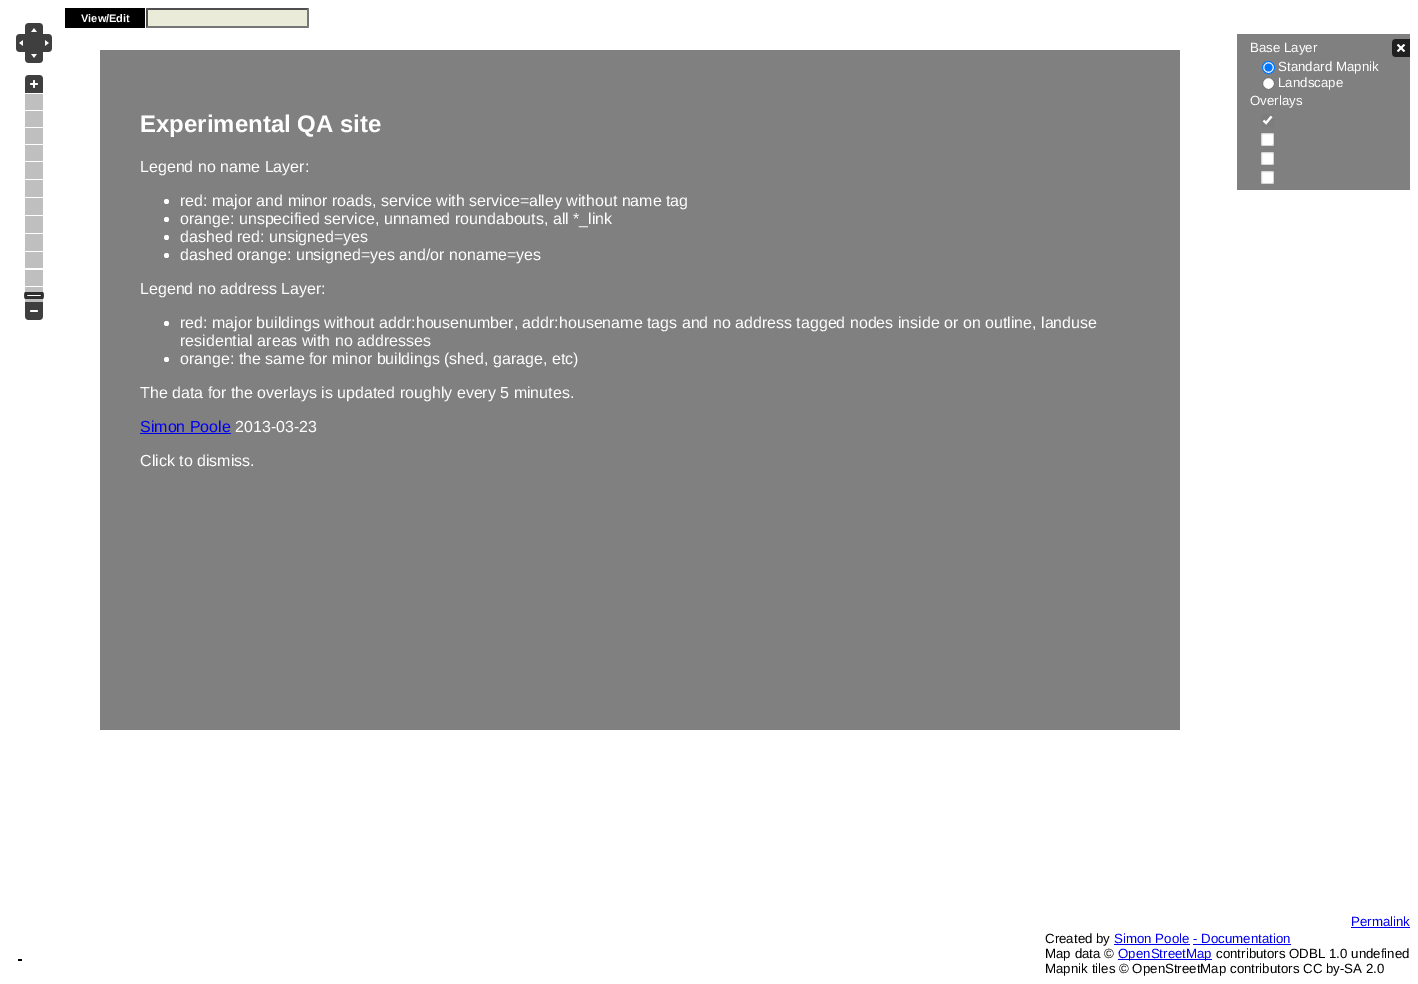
%!PS
<< /PageSize [1418 984] /PageUsesTransparency true >> setpagedevice
/rgb { 3 { 255 div 3 1 roll } repeat setrgbcolor } def
/font { [ exch dup neg 0 0 3 -1 roll 0 0 ] selectfont } def
/alpha { dup .setfillconstantalpha .setstrokeconstantalpha } def
/circle { newpath 0 360 arc closepath } def
/roundrect { 5 dict begin { /r /h /w /y /x } { exch def } forall
  x r add y moveto x w add y 2 copy h add r arct x w add y h add x 1 index r arct
  x y h add x y r arct x y 2 copy exch w add exch r arct closepath end } def
/picture { 5 dict begin { /h /w /y /x /name } { exch def } forall
  gsave x y translate w h scale
  w h 8 [w 0 0 h 0 0] name (r) file false 3 colorimage grestore end } def
0 .pushpdf14devicefilter
0 984 translate 1 -1 scale
4 setmiterlimit
255 255 255 rgb
0 0 1418 984 rectfill
0 0 0 rgb
65 8 80 20 rectfill
234 235 216 rgb
146 8 163 20 rectfill
79 79 79 rgb
146 8 moveto 309 8 lineto 307 10 lineto 148 10 lineto closepath fill
118 118 118 rgb
309 8 moveto 309 28 lineto 307 26 lineto 307 10 lineto closepath fill
309 28 moveto 146 28 lineto 148 26 lineto 307 26 lineto closepath fill
79 79 79 rgb
146 28 moveto 146 8 lineto 148 10 lineto 148 26 lineto closepath fill
128 128 128 rgb
100 50 1080 680 rectfill
255 255 255 rgb
166.5 201.5 2.5 circle fill
166.5 219.5 2.5 circle fill
166.5 237.5 2.5 circle fill
166.5 255.5 2.5 circle fill
166.5 323.5 2.5 circle fill
166.5 359.5 2.5 circle fill
0 0 238 rgb
140 433 91 1 rectfill
(img/1.rgb) 25 23 18 11 picture
(img/2.rgb) 16 34 18 18 picture
(img/3.rgb) 34 34 18 18 picture
(img/4.rgb) 25 52 18 11 picture
(img/5.rgb) 25 75 18 18 picture
(img/6.rgb) 25 94 18 208 picture
(img/7.rgb) 24 292 20 7 picture
(img/8.rgb) 25 302 18 18 picture
128 128 128 rgb
1237 34 173 156 rectfill
255 255 255 rgb
1268.5 67.5 6 circle gsave fill grestore
0 117 255 rgb
stroke
1268.5 67.5 4 circle fill
255 255 255 rgb
1268.5 83.5 6 circle gsave fill grestore
118 118 118 rgb
stroke
125 125 125 rgb
1261 114 13 13 2 roundrect fill
255 255 255 rgb
2.1 setlinewidth
1263.5 120.5 moveto 1266 123 lineto 1271.5 116.5 lineto stroke
1261 133 13 13 2 roundrect fill
0.3 alpha
118 118 118 rgb
1 setlinewidth
1261.5 133.5 12 12 1.5 roundrect stroke
1 alpha
255 255 255 rgb
1261 152 13 13 2 roundrect fill
0.3 alpha
118 118 118 rgb
1261.5 152.5 12 12 1.5 roundrect stroke
1 alpha
255 255 255 rgb
1261 171 13 13 2 roundrect fill
0.3 alpha
118 118 118 rgb
1261.5 171.5 12 12 1.5 roundrect stroke
1 alpha
(img/9.rgb) 1392 39 18 18 picture
[
  [1351 927 59 1 0 0 238]
  [18 959 4 2 0 0 0]
  [1114 944 76 1 0 0 238]
  [1193 944 98 1 0 0 238]
  [1118 959 94 1 0 0 238]
] { aload pop rgb rectfill } forall
/LiberationSans-Bold 11 font
255 255 255 rgb
81 22 moveto (View/Edit) show
/LiberationSans-Bold 24 font
140 132 moveto (Experimental QA site) show
/LiberationSans-Regular 16 font
[
  [(Legend no name Layer:) 140 172]
  [(red: major and minor roads, service with service=alley without name tag) 180 206]
  [(orange: unspecified service, unnamed roundabouts, all *_link) 180 224]
  [(dashed red: unsigned=yes) 180 242]
  [(dashed orange: unsigned=yes and/or noname=yes) 180 260]
  [(Legend no address Layer:) 140 294]
  [(red: major buildings without addr:housenumber, addr:housename tags and no address tagged nodes inside or on outline, landuse) 180 328]
  [(residential areas with no addresses) 180 346]
  [(orange: the same for minor buildings \(shed, garage, etc\)) 180 364]
  [(The data for the overlays is updated roughly every 5 minutes.) 140 398]
] { aload pop moveto show } forall
0 0 238 rgb
140 432 moveto (Simon Poole) show
255 255 255 rgb
235 432 moveto (2013-03-23) show
140 466 moveto (Click to dismiss.) show
/LiberationSans-Regular 13.3 font
[
  [(Base Layer) 1250 52]
  [(Standard Mapnik) 1278 71]
  [(Landscape) 1278 87]
  [(Overlays) 1250 105]
] { aload pop moveto show } forall
0 0 238 rgb
1351 926 moveto (Permalink) show
0 0 0 rgb
1045 943 moveto (Created by) show
0 0 238 rgb
1114 943 moveto (Simon Poole - Documentation) show
0 0 0 rgb
1045 958 moveto (Map data ©) show
0 0 238 rgb
1118 958 moveto (OpenStreetMap) show
0 0 0 rgb
1216 958 moveto (contributors ODBL 1.0 undefined) show
1045 973 moveto (Mapnik tiles © OpenStreetMap contributors CC by-SA 2.0) show
.poppdf14devicefilter showpage
